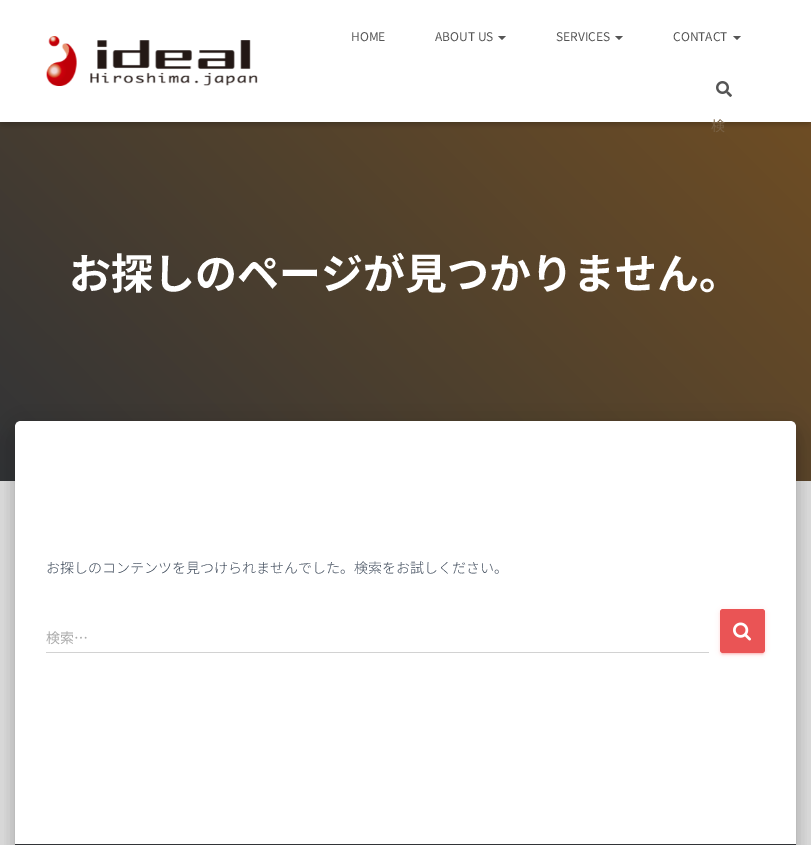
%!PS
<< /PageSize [811 845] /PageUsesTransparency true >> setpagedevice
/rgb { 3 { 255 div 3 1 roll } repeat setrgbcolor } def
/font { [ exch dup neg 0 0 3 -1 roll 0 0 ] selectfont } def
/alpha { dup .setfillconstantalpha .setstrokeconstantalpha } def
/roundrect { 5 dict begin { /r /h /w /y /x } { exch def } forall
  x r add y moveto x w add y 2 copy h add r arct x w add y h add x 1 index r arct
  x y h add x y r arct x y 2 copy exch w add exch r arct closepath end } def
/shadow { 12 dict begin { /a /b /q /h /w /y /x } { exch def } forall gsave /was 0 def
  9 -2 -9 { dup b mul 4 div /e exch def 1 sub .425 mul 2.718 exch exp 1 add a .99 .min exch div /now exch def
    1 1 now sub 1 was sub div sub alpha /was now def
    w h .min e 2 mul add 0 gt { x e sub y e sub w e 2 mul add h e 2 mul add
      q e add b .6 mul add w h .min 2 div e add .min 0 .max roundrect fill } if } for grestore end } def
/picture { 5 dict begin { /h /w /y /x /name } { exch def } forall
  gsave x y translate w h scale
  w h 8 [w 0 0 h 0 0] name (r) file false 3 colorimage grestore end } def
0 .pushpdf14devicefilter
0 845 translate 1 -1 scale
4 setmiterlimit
229 229 229 rgb
0 0 811 845 rectfill
gsave 0 122 moveto 811 122 lineto 811 481 lineto 0 481 lineto closepath clip newpath
<< /ShadingType 2 /ColorSpace /DeviceRGB /Coords [83 564 729 -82] /Extend [true true] /Function << /FunctionType 2 /Domain [0 1] /C0 [0.196 0.204 0.216] /C1 [0.455 0.314 0.133] /N 1 >> >> shfill grestore
0 0 0 rgb
2 6 807 118 0 2.5 0.1 shadow
0 1 811 122 0 5 0.12 shadow
6 7 799 110 0 5 0.42 shadow
255 255 255 rgb
0 0 811 122 rectfill
(img/1.rgb) 46 36 212 50 picture
85 85 85 rgb
498 36 moveto 506 36 lineto 502 40 lineto closepath fill
615 36 moveto 623 36 lineto 619 40 lineto closepath fill
733 36 moveto 741 36 lineto 737 40 lineto closepath fill
(img/2.rgb) 716 81 16 16 picture
0 0 0 rgb
20 434 771 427 1 5 0.2 shadow
10 422 791 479 11 15 0.12 shadow
13 435 785 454 8 12 0.14 shadow
255 255 255 rgb
21 421 moveto 790 421 lineto 793.5 421 796 423.5 796 427 curveto 796 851 lineto 15 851 lineto 15 427 lineto 15 423.5 17.5 421 21 421 curveto closepath fill
210 210 210 rgb
46 652 663 1 rectfill
234 84 85 rgb
720 610 45 44 3 2.5 0.12 shadow
722 614 41 40 1 0.5 0.2 shadow
720 611 45 44 3 1 0.14 shadow
720 609 45 44 3 roundrect fill
(img/3.rgb) 733 622 18 19 picture
50 52 55 rgb
15 844 781 1 rectfill
/NotoSansJP-Regular 12 font
85 85 85 rgb
[
  [(HOME) 351 41]
  [(ABOUT US) 435 41]
  [(SERVICES) 556 41]
  [(CONTACT) 673 41]
] { aload pop moveto show } forall
/NotoSansJP-Regular 14 font
121 97 68 rgb
711 131 moveto (検) show
/NotoSansJP-Bold 42 font
255 255 255 rgb
69 289 moveto (お探しのページが見つかりません。) show
/NotoSansJP-Light 14 font
60 72 88 rgb
46 573 moveto (お探しのコンテンツを見つけられませんでした。検索をお試しください。) show
/NotoSansJP-Regular 14 font
170 170 170 rgb
46 643 moveto (検索…) show
.poppdf14devicefilter showpage
